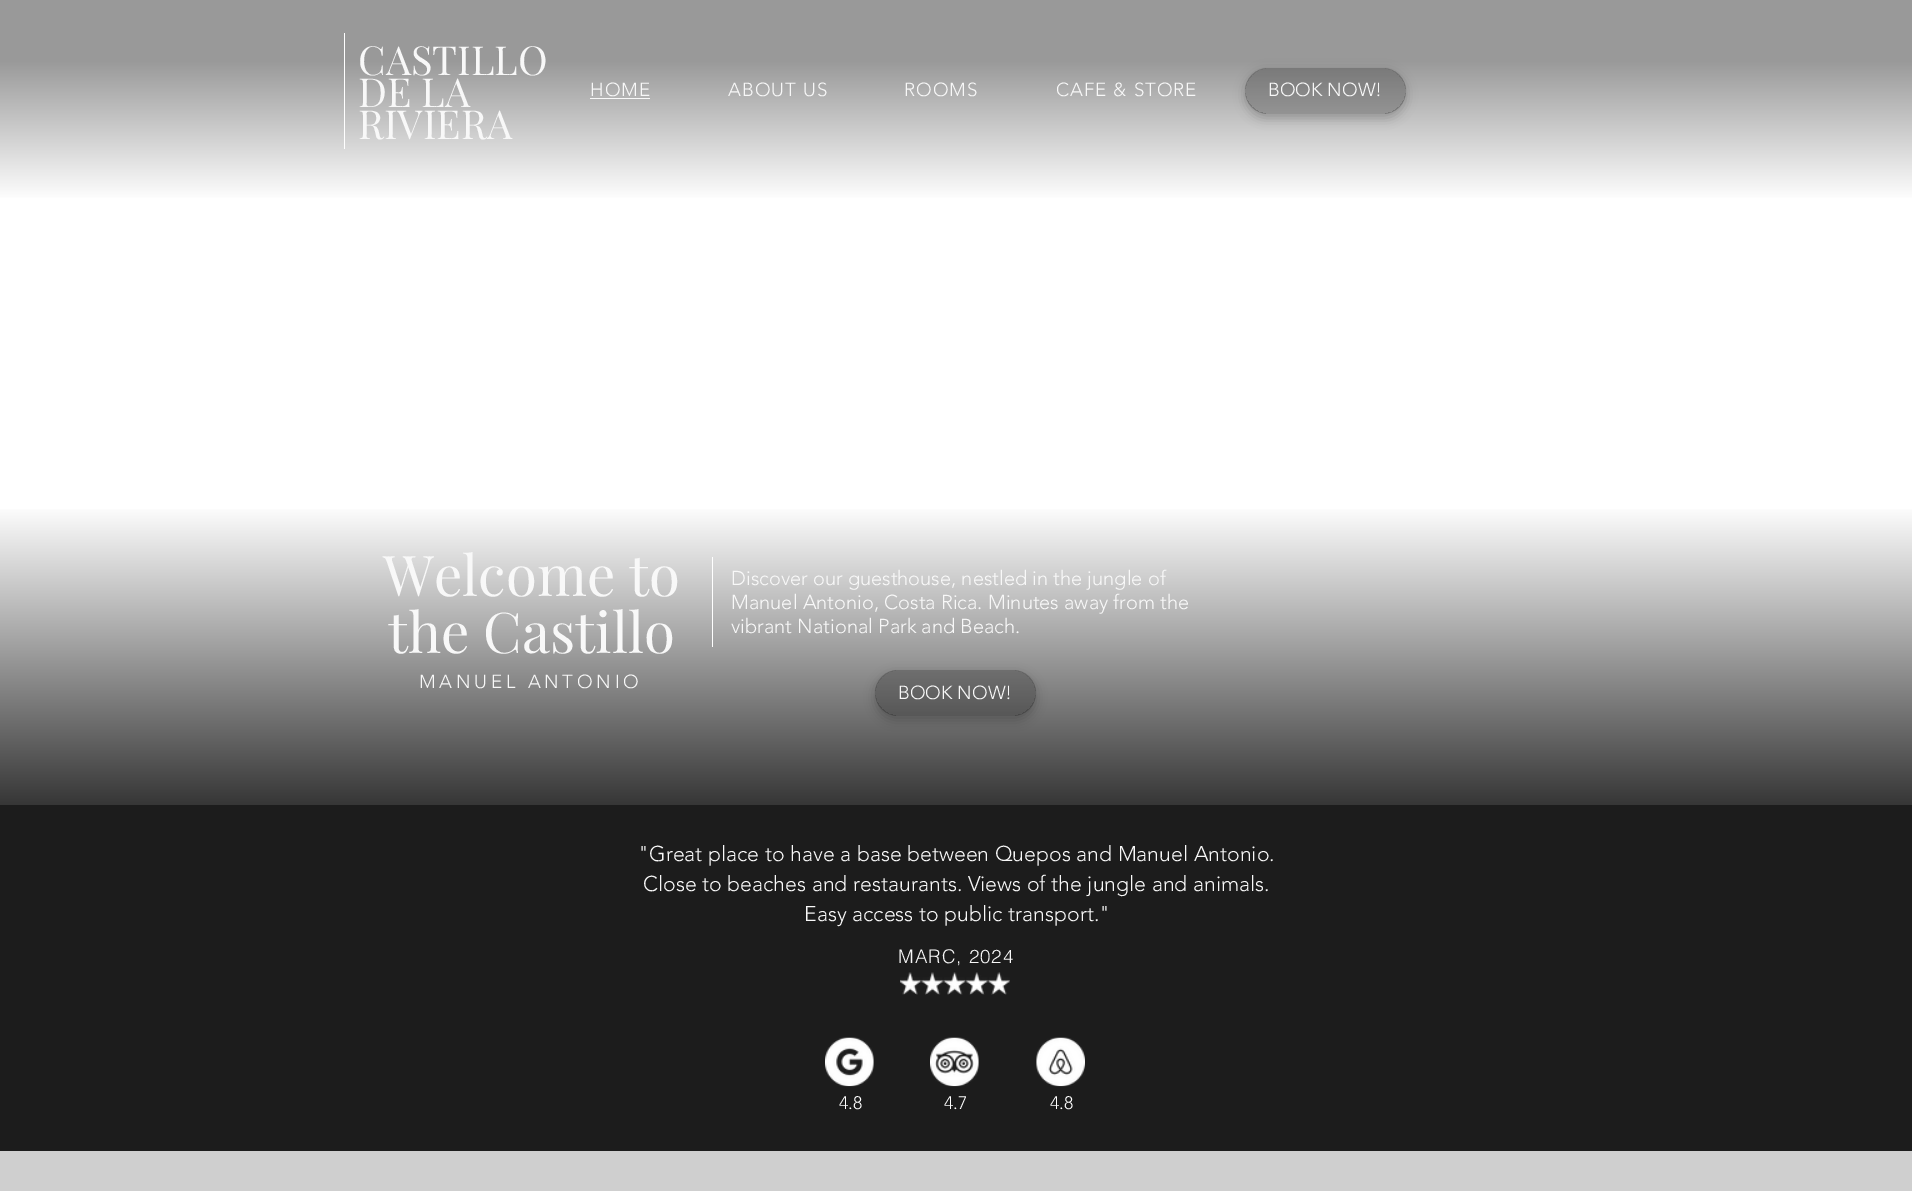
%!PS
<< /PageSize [1912 1191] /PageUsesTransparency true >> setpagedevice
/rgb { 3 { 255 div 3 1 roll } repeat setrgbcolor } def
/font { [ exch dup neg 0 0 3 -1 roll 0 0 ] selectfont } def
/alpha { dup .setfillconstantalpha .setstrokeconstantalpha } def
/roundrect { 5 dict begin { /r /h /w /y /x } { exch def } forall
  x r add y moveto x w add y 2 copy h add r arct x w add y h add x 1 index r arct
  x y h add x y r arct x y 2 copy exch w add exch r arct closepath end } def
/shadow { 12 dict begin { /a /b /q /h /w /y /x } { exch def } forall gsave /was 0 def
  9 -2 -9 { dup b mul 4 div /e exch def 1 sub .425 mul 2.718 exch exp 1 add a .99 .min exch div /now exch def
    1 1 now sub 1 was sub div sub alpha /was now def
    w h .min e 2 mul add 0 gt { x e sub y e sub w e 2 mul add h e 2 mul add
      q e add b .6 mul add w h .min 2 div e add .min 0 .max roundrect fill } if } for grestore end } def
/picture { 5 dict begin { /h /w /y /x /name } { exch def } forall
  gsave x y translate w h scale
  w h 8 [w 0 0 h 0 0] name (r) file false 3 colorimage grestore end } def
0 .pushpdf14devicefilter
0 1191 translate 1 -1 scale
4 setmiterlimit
255 255 255 rgb
0 0 1912 1191 rectfill
gsave 0 0 moveto 1912 0 lineto 1912 198 lineto 0 198 lineto closepath clip newpath
<< /ShadingType 2 /ColorSpace /DeviceRGB /Coords [956 0 956 201] /Extend [true true] /Function << /FunctionType 3 /Domain [0 1] /Functions [<< /FunctionType 2 /Domain [0 1] /C0 [0.6 0.6 0.6] /C1 [0.6 0.6 0.6] /N 1 >> << /FunctionType 2 /Domain [0 1] /C0 [0.6 0.6 0.6] /C1 [1 1 1] /N 1 >>] /Bounds [0.3] /Encode [0 1 0 1] >> >> shfill grestore
344 33 1 116 rectfill
248 248 248 rgb
590 98 60 1 rectfill
gsave
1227 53 moveto 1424 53 lineto 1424 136 lineto 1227 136 lineto closepath 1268 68 moveto 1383 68 lineto 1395.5 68 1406 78.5 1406 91 curveto 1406 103.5 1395.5 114 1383 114 curveto 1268 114 lineto 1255.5 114 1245 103.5 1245 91 curveto 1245 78.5 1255.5 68 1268 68 curveto closepath eoclip newpath
0 0 0 rgb
1245 71 161 47 23.5 5.5 0.23 shadow
grestore
0.23 alpha
0 0 0 rgb
1245 68 161 46 23 roundrect fill
1 alpha
gsave 0 509 moveto 1912 509 lineto 1912 805 lineto 0 805 lineto closepath clip newpath
<< /ShadingType 2 /ColorSpace /DeviceRGB /Coords [956 805 956 505] /Extend [true true] /Function << /FunctionType 2 /Domain [0 1] /C0 [0.212 0.212 0.212] /C1 [1 1 1] /N 1 >> >> shfill grestore
255 255 255 rgb
712 557 1 90 rectfill
gsave
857 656 moveto 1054 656 lineto 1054 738 lineto 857 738 lineto closepath 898 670 moveto 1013 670 lineto 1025.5 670 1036 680.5 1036 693 curveto 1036 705.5 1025.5 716 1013 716 curveto 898 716 lineto 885.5 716 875 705.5 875 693 curveto 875 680.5 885.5 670 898 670 curveto closepath eoclip newpath
0 0 0 rgb
875 674 161 46 23 5.5 0.23 shadow
grestore
0.23 alpha
0 0 0 rgb
875 670 161 46 23 roundrect fill
1 alpha
28 28 28 rgb
0 805 1912 346 rectfill
(img/1.rgb) 900 972 110 23 picture
(img/2.rgb) 825 1037 49 50 picture
(img/3.rgb) 930 1037 49 50 picture
(img/4.rgb) 1036 1037 49 50 picture
207 207 207 rgb
0 1151 1912 40 rectfill
/PlayfairDisplay-Regular 40 font
248 248 248 rgb
[
  [(CASTILLO) 358 75]
  [(DE LA) 358 107]
  [(RIVIERA) 358 139]
] { aload pop moveto show } forall
/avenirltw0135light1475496-Light 18.75 font
590 96 moveto 1 0 (HOME) ashow
728 96 moveto 1 0 (ABOUT US) ashow
904 96 moveto 1 0 (ROOMS) ashow
1056 96 moveto 1 0 (CAFE & STORE) ashow
1268 96 moveto (BOOK NOW!) show
/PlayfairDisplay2-Regular 56.25 font
383 596 moveto (Welcome to) show
388 653 moveto (the Castillo) show
/avenirltw0135light1475496-Light 20 font
[
  [(Discover our guesthouse, nestled in the jungle of) 731 585]
  [(Manuel Antonio, Costa Rica. Minutes away from the) 731 609]
  [(vibrant National Park and Beach.) 731 633]
] { aload pop moveto show } forall
/avenirltw0135light1475496-Light 18.75 font
419 688 moveto 3.75 0 (MANUEL ANTONIO) ashow
898 699 moveto (BOOK NOW!) show
/avenirltw0135light1475496-Light 21.25 font
[
  [("Great place to have a base between Quepos and Manuel Antonio.) 638 861]
  [(Close to beaches and restaurants. Views of the jungle and animals.) 643 891]
  [(Easy access to public transport.") 804 921]
] { aload pop moveto show } forall
/helvetica-Light 18.75 font
898 963 moveto 1 0 (MARC, 2024) ashow
/avenirltw0135light1475496-Light 18 font
255 255 255 rgb
[
  [(4.8) 839 1109]
  [(4.7) 944 1109]
  [(4.8) 1050 1109]
] { aload pop moveto show } forall
.poppdf14devicefilter showpage
